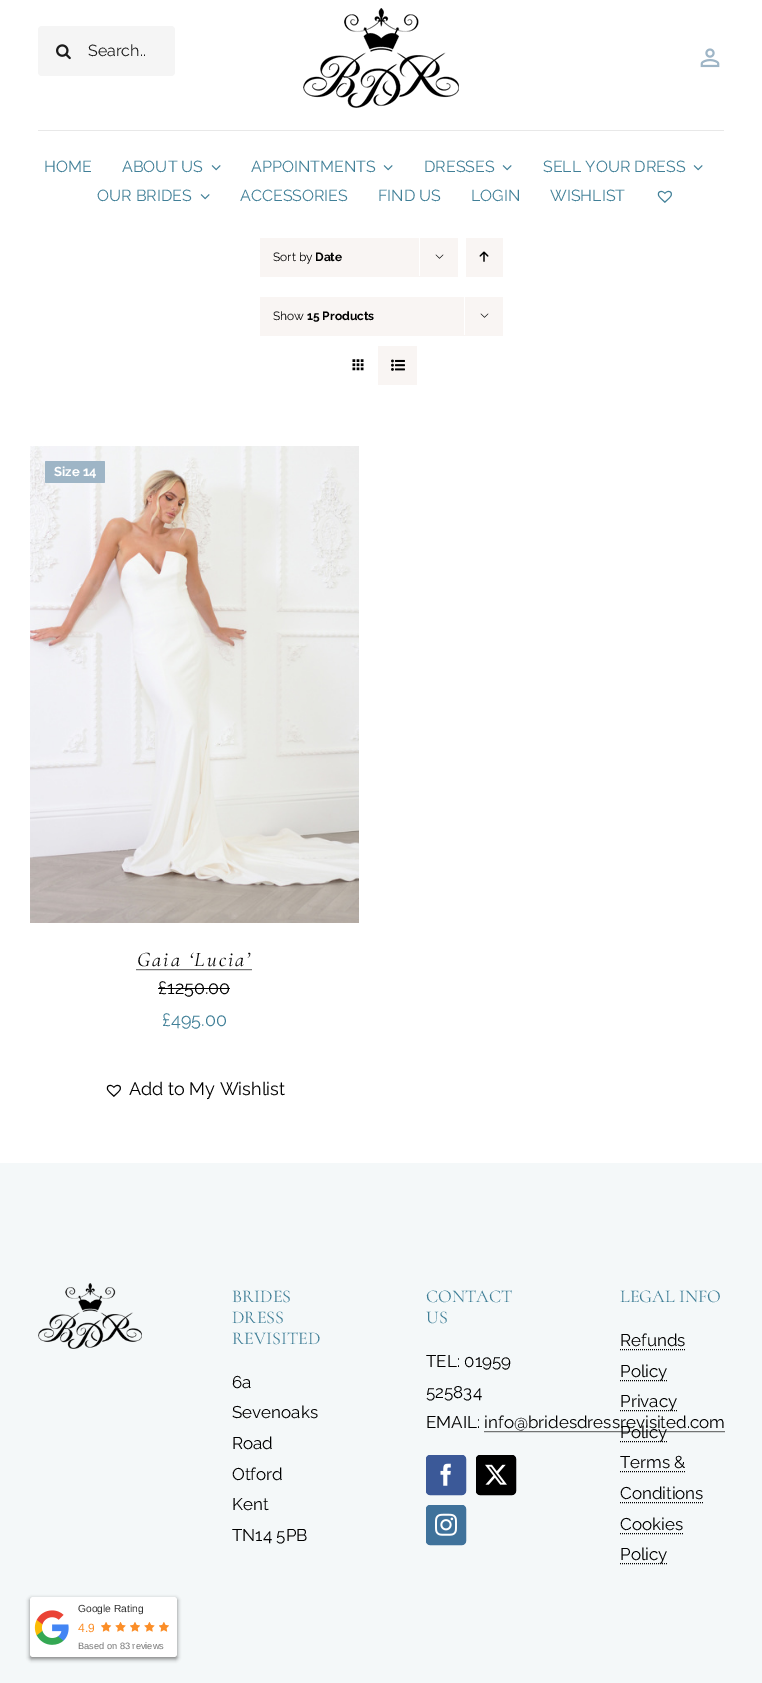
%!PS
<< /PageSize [762 1683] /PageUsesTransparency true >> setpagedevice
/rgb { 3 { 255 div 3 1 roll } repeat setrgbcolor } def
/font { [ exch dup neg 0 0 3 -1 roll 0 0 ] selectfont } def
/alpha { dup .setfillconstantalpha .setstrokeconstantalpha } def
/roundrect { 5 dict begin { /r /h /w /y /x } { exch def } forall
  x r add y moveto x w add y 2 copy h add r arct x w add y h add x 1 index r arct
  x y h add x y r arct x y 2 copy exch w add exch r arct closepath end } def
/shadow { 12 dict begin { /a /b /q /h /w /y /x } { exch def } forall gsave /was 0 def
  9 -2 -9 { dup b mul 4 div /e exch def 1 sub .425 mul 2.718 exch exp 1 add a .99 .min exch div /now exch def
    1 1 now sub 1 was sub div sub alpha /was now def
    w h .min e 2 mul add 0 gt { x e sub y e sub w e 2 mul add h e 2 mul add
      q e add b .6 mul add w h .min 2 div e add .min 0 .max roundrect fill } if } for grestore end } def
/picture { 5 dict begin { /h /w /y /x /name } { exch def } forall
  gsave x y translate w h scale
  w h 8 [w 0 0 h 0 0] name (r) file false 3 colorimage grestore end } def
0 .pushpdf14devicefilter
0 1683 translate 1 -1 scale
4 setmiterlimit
255 255 255 rgb
0 0 762 1683 rectfill
245 245 245 rgb
38 26 137 50 4 roundrect fill
(img/1.rgb) 56 44 15 16 picture
(img/2.rgb) 303 8 156 100 picture
(img/3.rgb) 700 48 20 20 picture
232 232 232 rgb
38 130 686 1 rectfill
(img/4.rgb) 211 165 10 6 picture
(img/4.rgb) 383 165 10 6 picture
(img/4.rgb) 502 165 10 6 picture
(img/4.rgb) 693 165 10 6 picture
(img/4.rgb) 200 194 10 6 picture
(img/5.rgb) 657 190 15 13 picture
249 245 243 rgb
260 238 198 39 rectfill
255 255 255 rgb
419 237 1 39 rectfill
(img/6.rgb) 435 254 9 5 picture
249 245 243 rgb
466 238 37 39 rectfill
(img/7.rgb) 479 251 10 11 picture
260 297 243 39 rectfill
255 255 255 rgb
464 296 1 39 rectfill
(img/6.rgb) 480 313 9 5 picture
(img/8.rgb) 352 359 12 12 picture
249 245 243 rgb
378 346 39 39 rectfill
(img/9.rgb) 391 359 14 12 picture
(img/10.rgb) 30 446 329 477 picture
158 181 198 rgb
48 461 moveto 102 461 lineto 104 461 105 461 105 462 curveto 105 482 lineto 105 483 104 483 102 483 curveto 48 483 lineto 46 483 45 483 45 482 curveto 45 462 lineto 45 461 46 461 48 461 curveto closepath fill
0 0 0 rgb
[1 1] 0 setdash
136.5 969.5 moveto 252 969.5 lineto stroke
158 988 72 1 rectfill
(img/11.rgb) 106 1084 15 13 picture
244 248 249 rgb
0 1163 762 520 rectfill
(img/12.rgb) 38 1283 104 66 picture
0 0 0 rgb
484.5 1431.5 moveto 725 1431.5 lineto stroke
59 89 152 rgb
426.5 1455.5 39 39 3.5 roundrect gsave fill grestore
[] 0 setdash
stroke
(img/13.rgb) 440 1463 11 23 picture
0 0 0 rgb
476.5 1455.5 39 39 3.5 roundrect gsave fill grestore
stroke
(img/14.rgb) 485 1464 22 21 picture
63 114 155 rgb
426.5 1505.5 39 39 3.5 roundrect gsave fill grestore
stroke
(img/15.rgb) 435 1513 22 23 picture
0 0 0 rgb
[1 1] 0 setdash
620 1349.5 moveto 685.5 1349.5 lineto stroke
620 1380.5 moveto 667.5 1380.5 lineto stroke
620 1410.5 moveto 677 1410.5 lineto stroke
620 1441.5 moveto 667.5 1441.5 lineto stroke
620 1471.5 moveto 686 1471.5 lineto stroke
620 1502.5 moveto 703.5 1502.5 lineto stroke
620 1533.5 moveto 683 1533.5 lineto stroke
620 1563.5 moveto 667.5 1563.5 lineto stroke
30 1599 147 60 1.5 2 0.26 shadow
30 1599 147 60 1.5 2 0.26 shadow
255 255 255 rgb
30 1597 147 60 3 roundrect fill
(img/16.rgb) 34 1610 35 35 picture
(img/17.rgb) 101 1622 11 10 picture
(img/18.rgb) 115 1622 11 10 picture
(img/19.rgb) 130 1622 10 10 picture
(img/20.rgb) 144 1622 11 10 picture
(img/21.rgb) 159 1622 10 10 picture
/Raleway-Regular 16 font
27 27 27 rgb
88 56 moveto (Search..) show
64 127 151 rgb
[
  [(HOME) 44 172]
  [(ABOUT US) 122 172]
  [(APPOINTMENTS) 251 172]
  [(DRESSES) 424 172]
  [(SELL YOUR DRESS) 543 172]
  [(OUR BRIDES) 97 201]
  [(ACCESSORIES) 240 201]
  [(FIND US) 378 201]
  [(LOGIN) 471 201]
  [(WISHLIST) 550 201]
] { aload pop moveto show } forall
/Raleway-Regular 12 font
0 0 0 rgb
273 261 moveto (Sort by) show
/Raleway-Bold 12 font
315 261 moveto (Date) show
/Raleway-Regular 12 font
273 320 moveto (Show) show
/Raleway-Bold 12 font
307 320 moveto (15 Products) show
/Raleway-Bold 13 font
255 255 255 rgb
54 476 moveto (Size 14) show
/Cormorant-LightItalic 21 font
0 0 0 rgb
137 966 moveto 2 0 (Gaia ‘Lucia’) ashow
/Raleway-Regular 18 font
158 994 moveto (£1250.00) show
64 127 151 rgb
162 1026 moveto (£495.00) show
0 0 0 rgb
129 1095 moveto (Add to My Wishlist) show
/Cormorant-Light 18 font
64 127 151 rgb
[
  [(BRIDES) 232 1302]
  [(DRESS) 232 1323]
  [(REVISITED) 232 1344]
] { aload pop moveto show } forall
/Raleway-Regular 17 font
0 0 0 rgb
[
  [(6a) 232 1388]
  [(Sevenoaks) 232 1418]
  [(Road) 232 1449]
  [(Otford) 232 1480]
  [(Kent) 232 1510]
  [(TN14 5PB) 232 1541]
] { aload pop moveto show } forall
/Cormorant-Light 18 font
64 127 151 rgb
426 1302 moveto (CONTACT) show
426 1323 moveto (US) show
/Raleway-Regular 17 font
0 0 0 rgb
[
  [(TEL: 01959) 426 1367]
  [(525834) 426 1398]
  [(EMAIL: info@bridesdressrevisited.com) 426 1428]
] { aload pop moveto show } forall
/Cormorant-Light 18 font
64 127 151 rgb
620 1302 moveto (LEGAL INFO) show
/Raleway-Regular 17 font
0 0 0 rgb
[
  [(Refunds) 620 1346]
  [(Policy) 620 1377]
  [(Privacy) 620 1407]
  [(Policy) 620 1438]
  [(Terms &) 620 1468]
  [(Conditions) 620 1499]
  [(Cookies) 620 1530]
  [(Policy) 620 1560]
] { aload pop moveto show } forall
/LiberationSans-Regular 10.25 font
51 51 51 rgb
78 1612 moveto (Google Rating) show
/LiberationSans-Regular 12 font
251 142 40 rgb
78 1632 moveto (4.9) show
/LiberationSans-Regular 9.25 font
119 119 119 rgb
78 1649 moveto (Based on 83 reviews) show
.poppdf14devicefilter showpage
